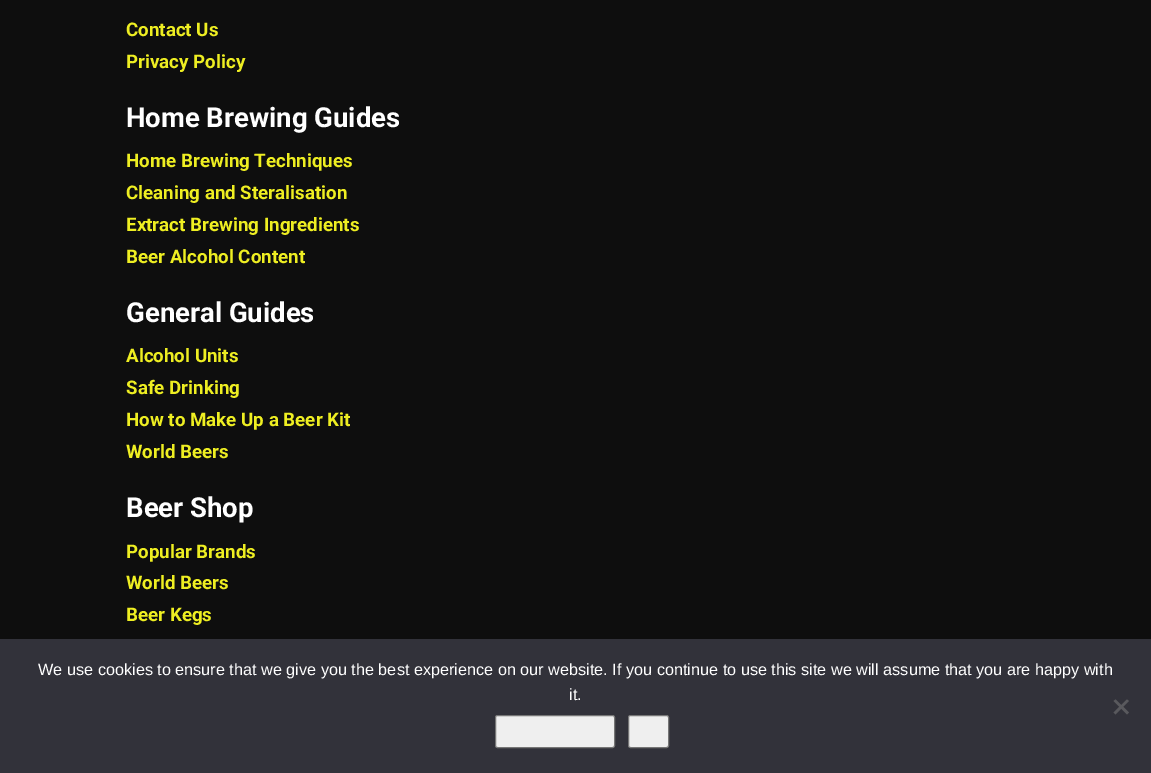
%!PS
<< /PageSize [1151 773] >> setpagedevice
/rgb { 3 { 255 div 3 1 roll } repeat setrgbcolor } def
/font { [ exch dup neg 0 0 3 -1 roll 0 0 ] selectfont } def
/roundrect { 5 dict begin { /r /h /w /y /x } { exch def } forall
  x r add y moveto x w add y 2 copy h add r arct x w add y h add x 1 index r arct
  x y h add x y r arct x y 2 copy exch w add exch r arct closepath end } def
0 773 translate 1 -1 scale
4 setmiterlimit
14 14 14 rgb
0 0 1151 773 rectfill
50 50 58 rgb
0 639 1151 134 rectfill
89 89 93 rgb
1127 699.5 moveto 1129 701 lineto 1115.5 714.5 lineto 1113.5 712.5 lineto closepath fill
1113.5 701 moveto 1115.5 699.5 lineto 1129 712.5 lineto 1127 714.5 lineto closepath fill
239 239 239 rgb
495.5 715.5 119 32 2 roundrect gsave fill grestore
118 118 118 rgb
stroke
239 239 239 rgb
628.5 715.5 40 32 2 roundrect gsave fill grestore
118 118 118 rgb
stroke
/Roboto-Bold 18.75 font
238 238 34 rgb
126 36 moveto (Contact Us) show
126 68 moveto (Privacy Policy) show
/Roboto-Bold 27.5 font
255 255 255 rgb
126 127 moveto (Home Brewing Guides) show
/Roboto-Bold 18.75 font
238 238 34 rgb
[
  [(Home Brewing Techniques) 126 167]
  [(Cleaning and Steralisation) 126 199]
  [(Extract Brewing Ingredients) 126 231]
  [(Beer Alcohol Content) 126 263]
] { aload pop moveto show } forall
/Roboto-Bold 27.5 font
255 255 255 rgb
126 322 moveto (General Guides) show
/Roboto-Bold 18.75 font
238 238 34 rgb
[
  [(Alcohol Units) 126 362]
  [(Safe Drinking) 126 394]
  [(How to Make Up a Beer Kit) 126 426]
  [(World Beers) 126 458]
] { aload pop moveto show } forall
/Roboto-Bold 27.5 font
255 255 255 rgb
126 517 moveto (Beer Shop) show
/Roboto-Bold 18.75 font
238 238 34 rgb
[
  [(Popular Brands) 126 558]
  [(World Beers) 126 589]
  [(Beer Kegs) 126 621]
] { aload pop moveto show } forall
/LiberationSans-Regular 16.25 font
255 255 255 rgb
38 675 moveto (We use cookies to ensure that we give you the best experience on our website. If you continue to use this site we will assume that you are happy with) show
569 700 moveto (it.) show
showpage
